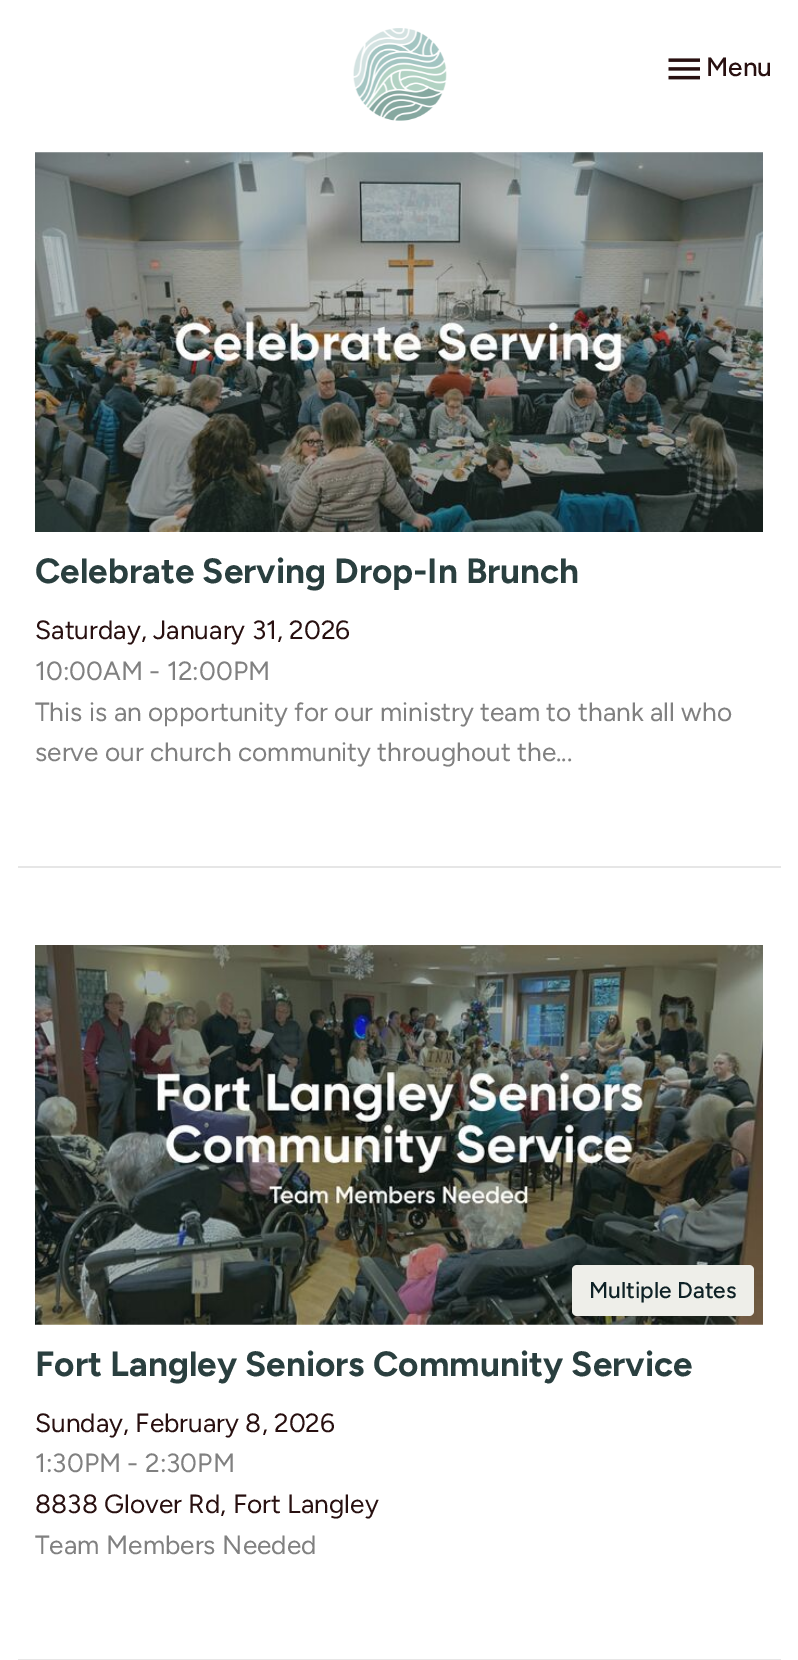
%!PS
<< /PageSize [798 1660] >> setpagedevice
/rgb { 3 { 255 div 3 1 roll } repeat setrgbcolor } def
/font { [ exch dup neg 0 0 3 -1 roll 0 0 ] selectfont } def
/roundrect { 5 dict begin { /r /h /w /y /x } { exch def } forall
  x r add y moveto x w add y 2 copy h add r arct x w add y h add x 1 index r arct
  x y h add x y r arct x y 2 copy exch w add exch r arct closepath end } def
/picture { 5 dict begin { /h /w /y /x /name } { exch def } forall
  gsave x y translate w h scale
  w h 8 [w 0 0 h 0 0] name (r) file false 3 colorimage grestore end } def
0 1660 translate 1 -1 scale
4 setmiterlimit
255 255 255 rgb
0 0 798 1660 rectfill
(img/1.rgb) 353 28 94 93 picture
(img/2.rgb) 668 58 32 22 picture
230 230 230 rgb
18 866 763 2 rectfill
(img/3.rgb) 35 152 728 380 picture
18 1659 763 1 rectfill
(img/4.rgb) 35 945 728 380 picture
238 238 233 rgb
572 1265 182 51 5 roundrect fill
/Figtree-Medium 26.25 font
40 16 16 rgb
706 76 moveto (Menu) show
/Figtree-Bold 35 font
42 63 63 rgb
35 583 moveto (Celebrate Serving Drop-In Brunch) show
/Figtree-Regular 26.25 font
40 16 16 rgb
35 639 moveto (Saturday, January 31, 2026) show
128 128 128 rgb
[
  [(10:00AM - 12:00PM) 35 680]
  [(This is an opportunity for our ministry team to thank all who) 35 721]
  [(serve our church community throughout the...) 35 761]
] { aload pop moveto show } forall
/Figtree-Medium 22.75 font
14 33 38 rgb
589 1298 moveto (Multiple Dates) show
/Figtree-Bold 35 font
42 63 63 rgb
35 1376 moveto (Fort Langley Seniors Community Service) show
/Figtree-Regular 26.25 font
40 16 16 rgb
35 1432 moveto (Sunday, February 8, 2026) show
128 128 128 rgb
35 1472 moveto (1:30PM - 2:30PM) show
40 16 16 rgb
35 1513 moveto (8838 Glover Rd, Fort Langley) show
128 128 128 rgb
35 1554 moveto (Team Members Needed) show
showpage
